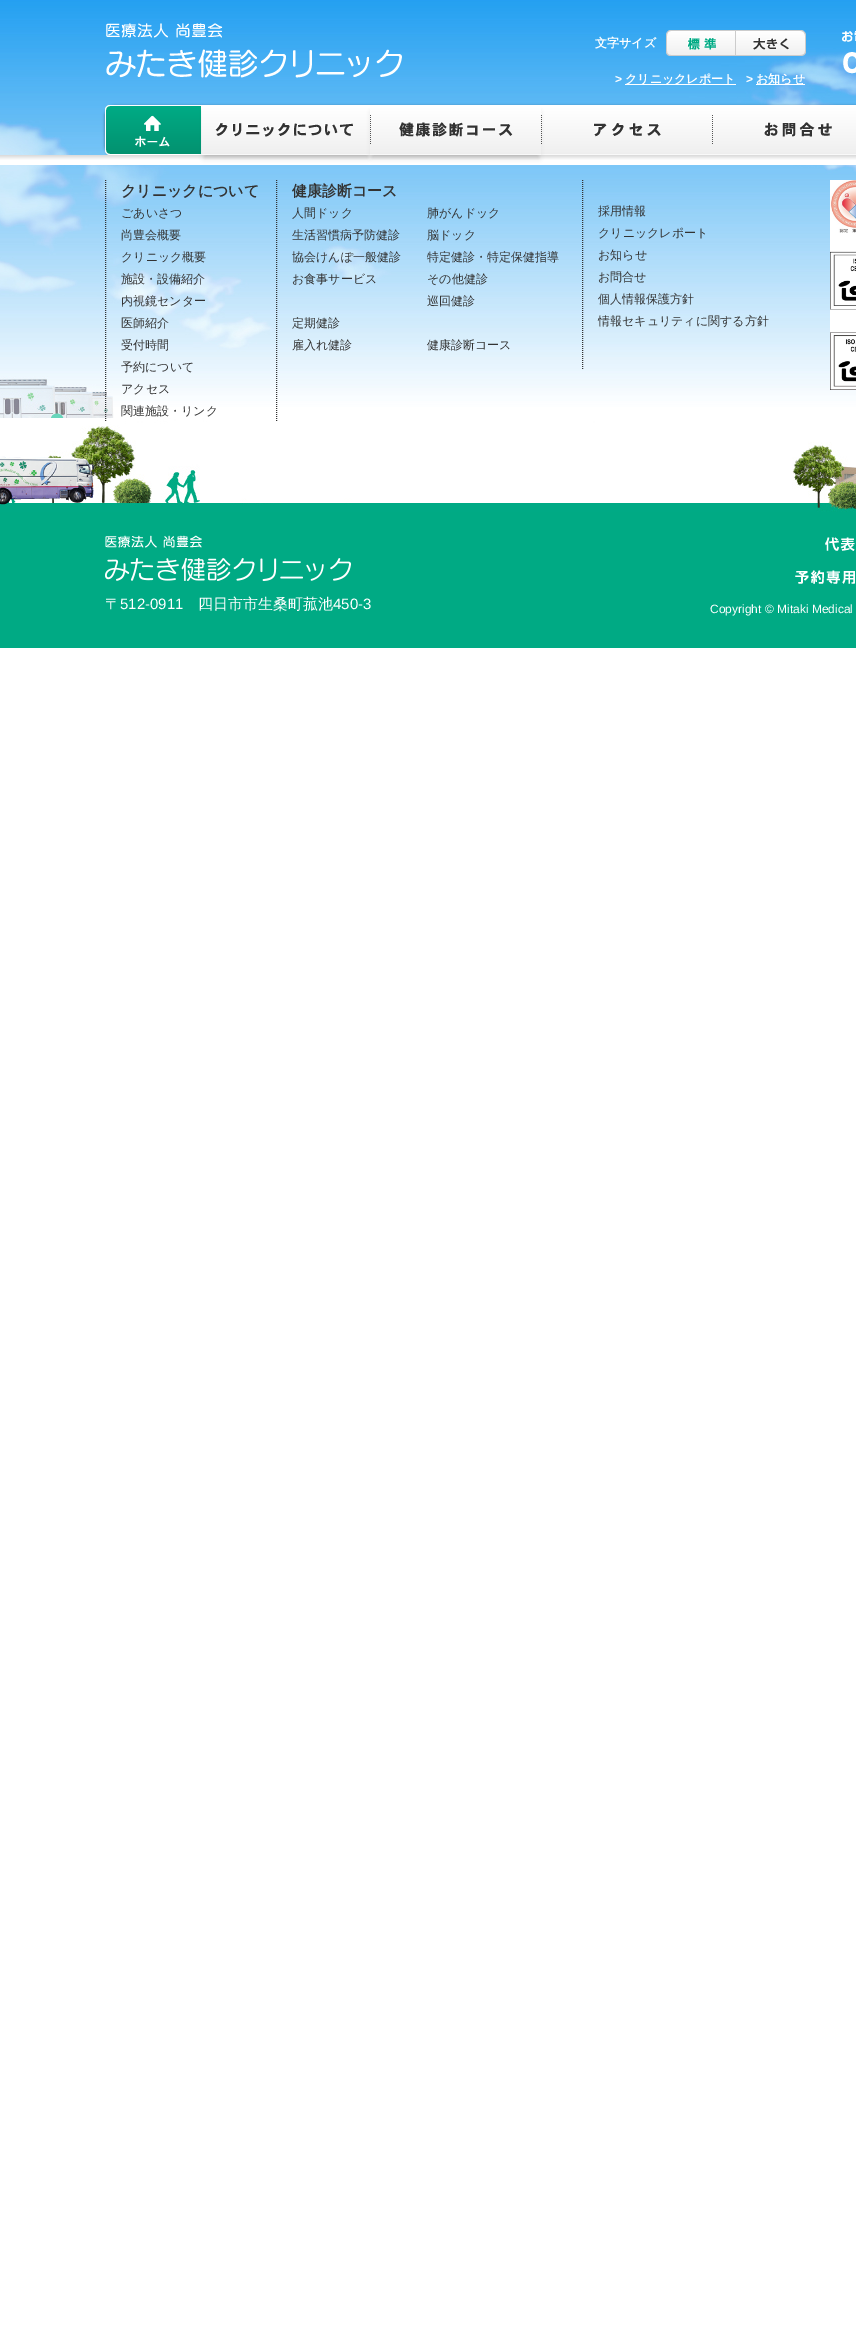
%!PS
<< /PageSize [856 2335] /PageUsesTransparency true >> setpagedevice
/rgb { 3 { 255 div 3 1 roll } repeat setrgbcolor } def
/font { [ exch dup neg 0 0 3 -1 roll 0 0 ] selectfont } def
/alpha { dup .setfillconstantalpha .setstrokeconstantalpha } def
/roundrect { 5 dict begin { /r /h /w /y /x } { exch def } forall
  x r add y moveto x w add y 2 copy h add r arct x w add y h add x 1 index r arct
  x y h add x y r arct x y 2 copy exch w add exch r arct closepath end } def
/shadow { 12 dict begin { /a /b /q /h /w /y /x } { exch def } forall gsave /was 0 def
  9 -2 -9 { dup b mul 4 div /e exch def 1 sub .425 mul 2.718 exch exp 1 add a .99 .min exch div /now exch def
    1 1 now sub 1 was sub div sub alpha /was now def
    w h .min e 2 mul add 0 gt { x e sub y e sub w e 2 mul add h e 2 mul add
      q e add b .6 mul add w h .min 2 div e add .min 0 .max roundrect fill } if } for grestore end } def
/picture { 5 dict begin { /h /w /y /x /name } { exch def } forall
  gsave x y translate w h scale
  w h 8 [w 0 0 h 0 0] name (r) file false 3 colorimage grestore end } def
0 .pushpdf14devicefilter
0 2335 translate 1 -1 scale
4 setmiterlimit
255 255 255 rgb
0 0 856 2335 rectfill
(img/1.rgb) 0 0 856 418 picture
(img/2.rgb) 106 23 296 55 picture
(img/3.rgb) 666 30 70 26 picture
(img/4.rgb) 736 30 70 26 picture
625 84 111 1 rectfill
756 84 49 1 rectfill
(img/5.rgb) 842 31 14 43 picture
0 0 0 rgb
105 106 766 50 10 1.5 0.4 shadow
(img/6.rgb) 105 105 97 50 picture
(img/11.rgb) 0 155 856 493 picture
51 51 51 rgb
204 112 164 46 0 2.5 0.2 shadow
(img/7.rgb) 202 105 168 50 picture
(img/9.rgb) 541 105 171 50 picture
372 112 167 46 0 2.5 0.2 shadow
(img/8.rgb) 370 105 171 50 picture
(img/10.rgb) 712 105 144 50 picture
(img/13.rgb) 0 418 856 94 picture
(img/12.rgb) 0 456 95 49 picture
[1 1] 0 setdash
276.5 180 moveto 276.5 422 lineto stroke
105.5 180 moveto 105.5 422 lineto stroke
582.5 180 moveto 582.5 370 lineto stroke
(img/14.rgb) 830 180 26 210 picture
(img/15.rgb) 105 535 246 46 picture
(img/16.rgb) 795 537 60 47 picture
/WenQuanYiZenHei-Bold 12 font
255 255 255 rgb
595 47 moveto (文字サイズ) show
/LiberationSans-Bold 12 font
615 83 moveto (>) show
/WenQuanYiZenHei-Bold 12 font
625 83 moveto (クリニックレポート) show
/LiberationSans-Bold 12 font
746 83 moveto (>) show
/WenQuanYiZenHei-Bold 12 font
756 83 moveto (お知らせ) show
/WenQuanYiZenHei-Bold 15 font
51 51 51 rgb
121 196 moveto (クリニックについて) show
/WenQuanYiZenHei-Medium 12 font
[
  [(ごあいさつ) 121 217]
  [(尚豊会概要) 121 239]
  [(クリニック概要) 121 261]
  [(施設・設備紹介) 121 283]
  [(内視鏡センター) 121 305]
  [(医師紹介) 121 327]
  [(受付時間) 121 349]
  [(予約について) 121 371]
  [(アクセス) 121 393]
  [(関連施設・リンク) 121 415]
] { aload pop moveto show } forall
/WenQuanYiZenHei-Bold 15 font
292 196 moveto (健康診断コース) show
/WenQuanYiZenHei-Medium 12 font
[
  [(人間ドック) 292 217]
  [(生活習慣病予防健診) 292 239]
  [(協会けんぽ一般健診) 292 261]
  [(お食事サービス) 292 283]
  [(定期健診) 292 327]
  [(雇入れ健診) 292 349]
  [(肺がんドック) 427 217]
  [(脳ドック) 427 239]
  [(特定健診・特定保健指導) 427 261]
  [(その他健診) 427 283]
  [(巡回健診) 427 305]
  [(健康診断コース) 427 349]
  [(採用情報) 598 215]
  [(クリニックレポート) 598 237]
  [(お知らせ) 598 259]
  [(お問合せ) 598 281]
  [(個人情報保護方針) 598 303]
  [(情報セキュリティに関する方針) 598 325]
] { aload pop moveto show } forall
/WenQuanYiZenHei-Medium 15 font
255 255 255 rgb
105 609 moveto (〒) show
/LiberationSans-Regular 15 font
120 609 moveto (512-0911) show
/WenQuanYiZenHei-Medium 15 font
198 609 moveto (四日市市生桑町菰池) show
/LiberationSans-Regular 15 font
333 609 moveto (450-3) show
/LiberationSans-Regular 12 font
710 613 moveto (Copyright © Mitaki Medical) show
.poppdf14devicefilter showpage
